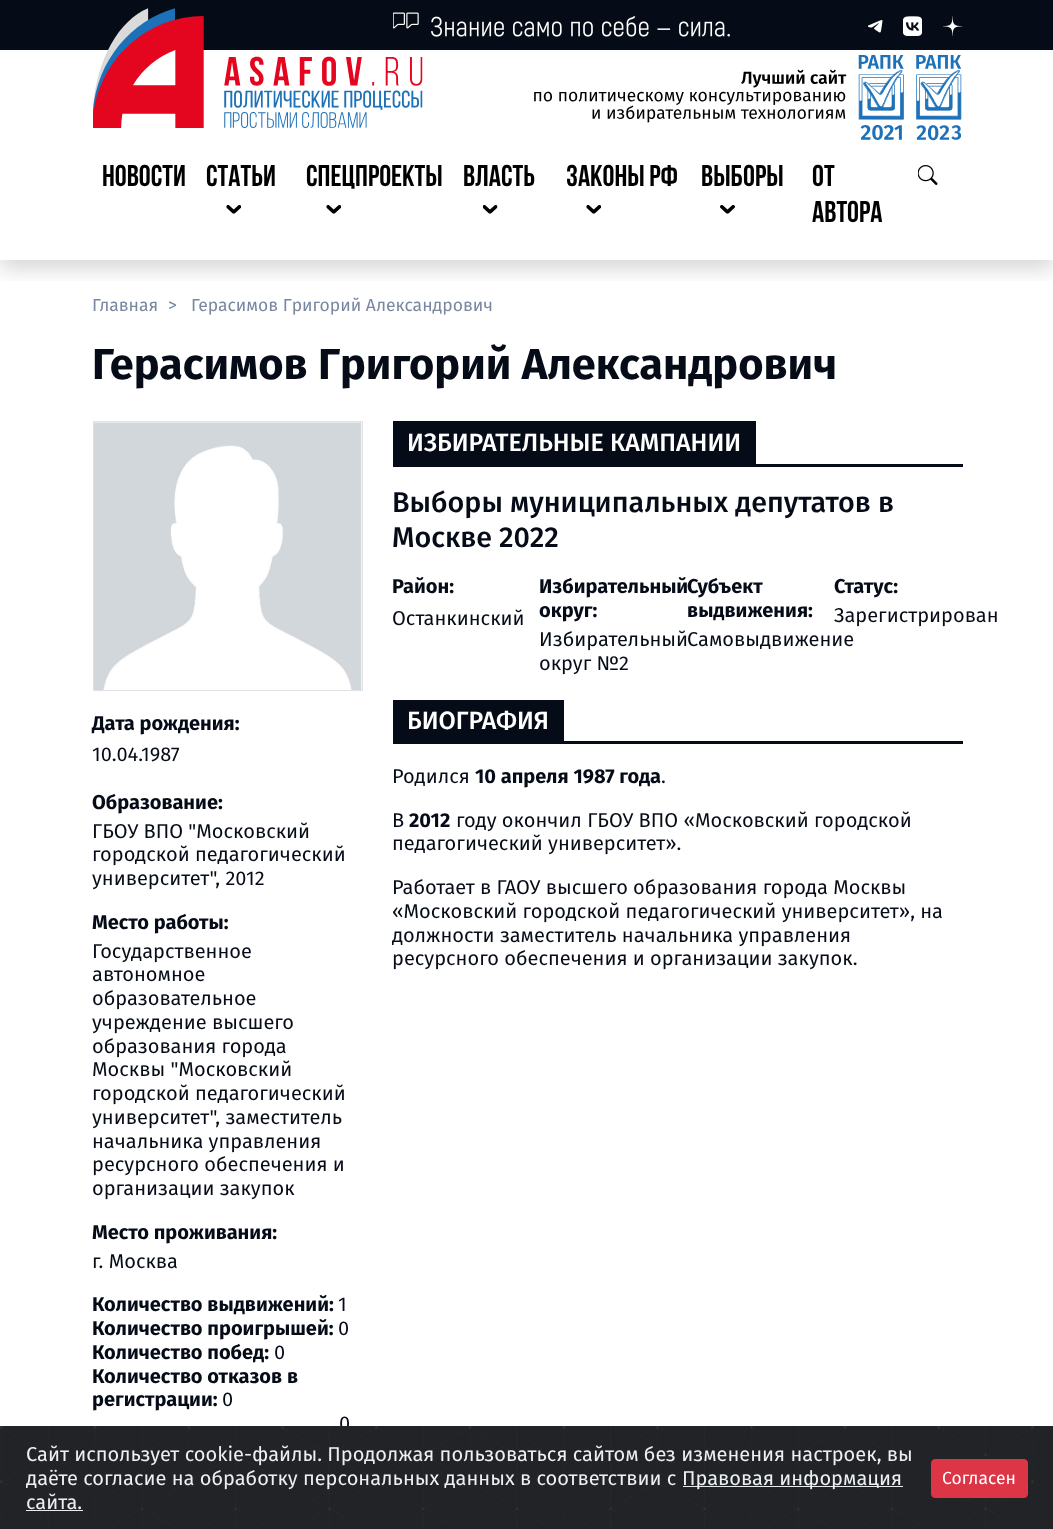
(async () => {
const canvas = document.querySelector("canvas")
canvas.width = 1053
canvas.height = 1529
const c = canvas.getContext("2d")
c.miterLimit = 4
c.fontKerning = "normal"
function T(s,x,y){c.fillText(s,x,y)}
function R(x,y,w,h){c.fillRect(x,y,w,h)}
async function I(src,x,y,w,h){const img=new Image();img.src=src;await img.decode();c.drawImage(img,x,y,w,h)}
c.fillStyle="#fff"
R(0,0,1053,1529)
c.save()
c.beginPath()
c.rect(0,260,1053,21)
c.clip()
c.fillStyle="#00000026"
c.filter="blur(10px)"
c.beginPath()
c.rect(0,10,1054,260)
c.fill()
c.filter="none"
c.restore()
c.fillStyle="#060c17"
R(0,0,1053,50)
await I("1.png",393,12,337,25)
await I("2.png",868,20,15,13)
await I("3.png",903,16,19,20)
await I("4.png",943,16,20,20)
await I("5.png",93,8,330,120)
await I("6.png",534,55,428,86)
c.font="bold 30px Bebas Neue"
c.fillStyle="#000"
T("НОВОСТИ",102,186)
T("СТАТЬИ",206,186)
await I("7.png",226,205,15,9)
T("СПЕЦПРОЕКТЫ",306,186)
await I("7.png",326,205,15,9)
T("ВЛАСТЬ",463,186)
await I("8.png",483,205,15,9)
T("ЗАКОНЫ РФ",566,186)
await I("7.png",586,205,15,9)
T("ВЫБОРЫ",701,186)
await I("9.png",720,205,15,9)
T("ОТ",812,186)
T("АВТОРА",812,222)
await I("10.png",918,165,20,20)
c.font="17.5px Fira Sans"
c.fillStyle="#7987a1"
T("Главная",92,311)
T(">",168,311)
T("Герасимов Григорий Александрович",191,311)
c.font="bold 43.3px Fira Sans"
c.fillStyle="#060c17"
T("Герасимов Григорий Александрович",92,379)
c.strokeStyle="#dee2e6"
c.strokeRect(93.5,421.5,269,269)
await I("11.png",94,422,268,268)
c.font="bold 20px Fira Sans"
T("Дата рождения:",92,730)
c.font="20px Fira Sans"
T("10.04.1987",92,761)
c.font="bold 20px Fira Sans"
T("Образование:",92,809)
c.font="20px Fira Sans"
T("ГБОУ ВПО \"Московский",92,838)
T("городской педагогический",92,861)
T("университет\", 2012",92,885)
c.font="bold 20px Fira Sans"
T("Место работы:",92,929)
c.font="20px Fira Sans"
T("Государственное",92,958)
T("автономное",92,981)
T("образовательное",92,1005)
T("учреждение высшего",92,1029)
T("образования города",92,1053)
T("Москвы \"Московский",92,1076)
T("городской педагогический",92,1100)
T("университет\", заместитель",92,1124)
T("начальника управления",92,1148)
T("ресурсного обеспечения и",92,1171)
T("организации закупок",92,1195)
c.font="bold 20px Fira Sans"
T("Место проживания:",92,1239)
c.font="20px Fira Sans"
T("г. Москва",92,1268)
c.font="bold 20px Fira Sans"
T("Количество выдвижений:",92,1311)
c.font="20px Fira Sans"
T("1",338,1311)
c.font="bold 20px Fira Sans"
T("Количество проигрышей:",92,1335)
c.font="20px Fira Sans"
T("0",338,1335)
c.font="bold 20px Fira Sans"
T("Количество побед:",92,1359)
c.font="20px Fira Sans"
T("0",274,1359)
c.font="bold 20px Fira Sans"
T("Количество отказов в",92,1383)
T("регистрации:",92,1406)
c.font="20px Fira Sans"
T("0",222,1406)
T("0",339,1430)
R(393,464,570,3)
R(393,421,363,43)
c.font="500 25px Fira Sans"
c.fillStyle="#fff"
T("ИЗБИРАТЕЛЬНЫЕ КАМПАНИИ",407,451)
c.font="500 28.7px Fira Sans"
c.fillStyle="#060c17"
T("Выборы муниципальных депутатов в",392,512)
T("Москве 2022",392,547)
c.font="bold 20px Fira Sans"
T("Район:",392,593)
c.font="20px Fira Sans"
T("Останкинский",392,625)
c.font="bold 20px Fira Sans"
T("Избирательный",539,593)
T("округ:",539,617)
c.font="20px Fira Sans"
T("Избирательный",539,646)
T("округ №2",539,670)
c.font="bold 20px Fira Sans"
T("Субъект",687,593)
T("выдвижения:",687,617)
c.font="20px Fira Sans"
T("Самовыдвижение",687,646)
c.font="bold 20px Fira Sans"
T("Статус:",834,593)
c.font="20px Fira Sans"
T("Зарегистрирован",834,622)
R(393,741,570,3)
R(393,700,171,41)
c.font="500 25px Fira Sans"
c.fillStyle="#fff"
T("БИОГРАФИЯ",407,729)
c.font="20px Fira Sans"
c.fillStyle="#060c17"
T("Родился",392,783)
c.font="bold 20px Fira Sans"
T("10 апреля 1987 года",475,783)
c.font="20px Fira Sans"
T(".",661,783)
T("В",392,827)
c.font="bold 20px Fira Sans"
T("2012",409,827)
c.font="20px Fira Sans"
T("году окончил ГБОУ ВПО «Московский городской",456,827)
T("педагогический университет».",392,850)
T("Работает в ГАОУ высшего образования города Москвы",392,894)
T("«Московский городской педагогический университет», на",392,918)
T("должности заместитель начальника управления",392,942)
T("ресурсного обеспечения и организации закупок.",392,965)
c.fillStyle="#212327"
R(1044,1426,9,103)
await I("12.png",0,1426,1044,103)
c.fillStyle="#ecf0f1"
T("Сайт использует cookie-файлы. Продолжая пользоваться сайтом без изменения настроек, вы",26,1461)
T("даёте согласие на обработку персональных данных в соответствии с",26,1485)
c.fillStyle="#e9ecef"
R(683,1486,220,1)
c.fillStyle="#ecf0f1"
T("Правовая информация",682,1485)
T("сайта.",26,1509)
c.fillStyle="#e9ecef"
R(26,1510,57,1)
c.fillStyle="#dc3545"
c.beginPath()
c.roundRect(931.5,1459.5,96,38,3.5)
c.fill()
c.strokeStyle="#dc3545"
c.stroke()
c.font="17.5px Fira Sans"
c.fillStyle="#fff"
T("Согласен",942,1484)
})()
